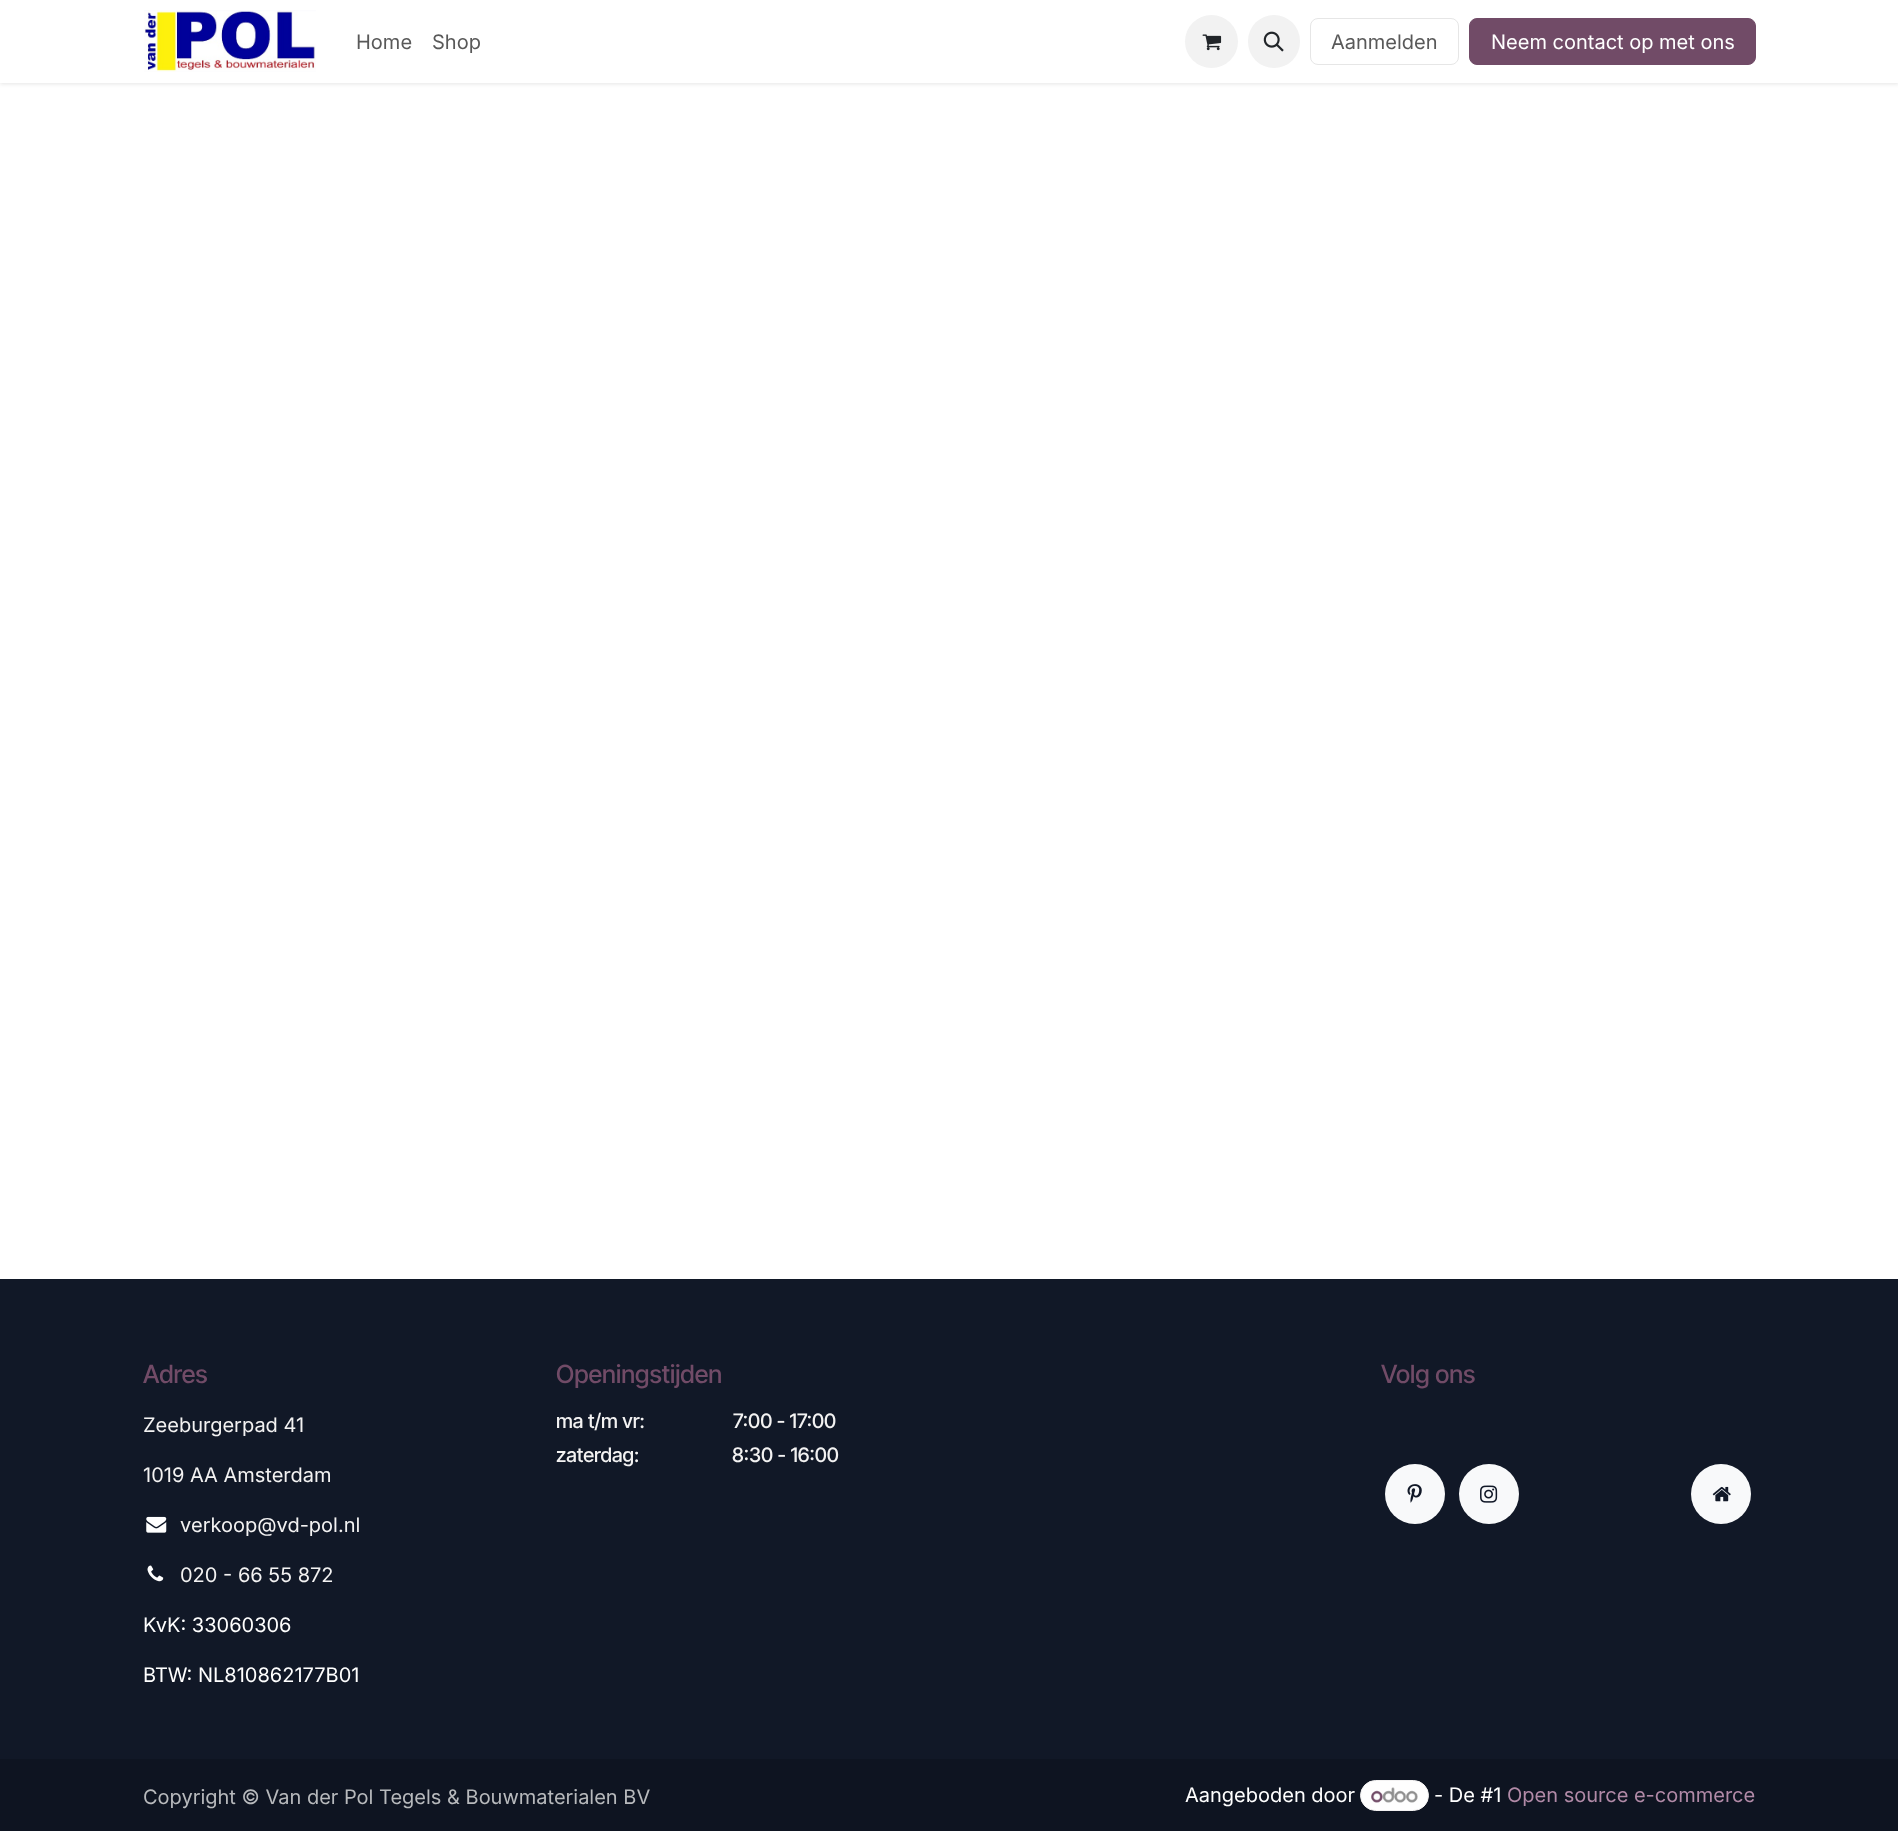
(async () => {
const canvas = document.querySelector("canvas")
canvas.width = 1898
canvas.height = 1831
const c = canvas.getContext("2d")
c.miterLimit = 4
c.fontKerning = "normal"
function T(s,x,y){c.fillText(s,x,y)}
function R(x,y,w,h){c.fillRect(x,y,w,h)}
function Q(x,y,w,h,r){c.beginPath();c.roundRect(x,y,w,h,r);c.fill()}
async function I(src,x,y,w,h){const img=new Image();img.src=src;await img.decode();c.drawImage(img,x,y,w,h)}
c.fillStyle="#fff"
R(0,0,1898,1831)
c.fillStyle="#0000001a"
c.filter="blur(2px)"
c.beginPath()
c.rect(0,1,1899,83)
c.fill()
c.filter="none"
c.fillStyle="#fff"
R(0,0,1898,83)
await I("1.png",144,10,172,62)
c.font="20px Inter"
c.fillStyle="#595959"
T("Home",356,49)
T("Shop",432,49)
c.fillStyle="#f2f2f2"
c.beginPath()
c.arc(1211.5,41.5,26.5,0,7)
c.fill()
await I("2.png",1202,34,20,17)
Q(1248,15,52,53,26)
await I("3.png",1263,31,21,21)
c.beginPath()
c.roundRect(1310.5,18.5,148,46,7.5)
c.strokeStyle="#e6e6e6"
c.stroke()
c.fillStyle="#595959"
T("Aanmelden",1331,49)
c.fillStyle="#714b67"
c.beginPath()
c.roundRect(1469.5,18.5,286,46,7.5)
c.fill()
c.strokeStyle="#714b67"
c.stroke()
c.fillStyle="#fff"
T("Neem contact op met ons",1491,49)
c.fillStyle="#111827"
R(0,1279,1898,480)
c.font="500 25px Inter Tight"
c.fillStyle="#714b67"
T("Adres",143,1383)
c.font="20px Inter"
c.fillStyle="#f3f2f2"
T("Zeeburgerpad 41",143,1432)
T("1019 AA Amsterdam",143,1482)
await I("4.png",146,1516,21,17)
T("v",180,1532)
T("erkoop@vd-pol.nl",191,1532)
await I("5.png",147,1565,17,17)
T("020 - 66 55 872",180,1582)
c.fillStyle="#fff"
T("KvK: 33060306",143,1632)
T("BTW: NL810862177B01",143,1682)
c.font="500 25px Inter Tight"
c.fillStyle="#714b67"
T("Openingstijden",556,1383)
c.font="500 20px Inter Tight"
c.fillStyle="#f3f2f2"
T("ma t/m vr:",556,1428)
T("7:00 - 17:00",733,1428)
T("zaterdag:",556,1462)
T("8:30 - 16:00",732,1462)
c.font="500 25px Inter Tight"
c.fillStyle="#714b67"
T("Volg ons",1381,1383)
c.fillStyle="#f8f9fa"
c.beginPath()
c.arc(1415,1494,30,0,7)
c.fill()
await I("6.png",1407,1484,15,19)
c.beginPath()
c.arc(1489,1494,30,0,7)
c.fill()
await I("7.png",1480,1485,18,18)
c.beginPath()
c.arc(1721,1494,30,0,7)
c.fill()
await I("8.png",1712,1486,19,16)
c.fillStyle="#0e1421"
R(0,1759,1898,72)
c.font="20px Inter"
c.fillStyle="#b7b9bc"
T("Copyright © Van der Pol Tegels & Bouwmaterialen BV",143,1804)
c.fillStyle="#fff"
T("Aangeboden door",1185,1802)
c.fillStyle="#fefefe"
c.beginPath()
c.roundRect(1360.5,1780.5,68,30,15)
c.fill()
c.strokeStyle="#f3f2f2"
c.stroke()
await I("9.png",1371,1787,47,16)
c.fillStyle="#fff"
T("- De #1",1434,1802)
c.fillStyle="#b18aa7"
T("Open source e-commerce",1507,1802)
})()
